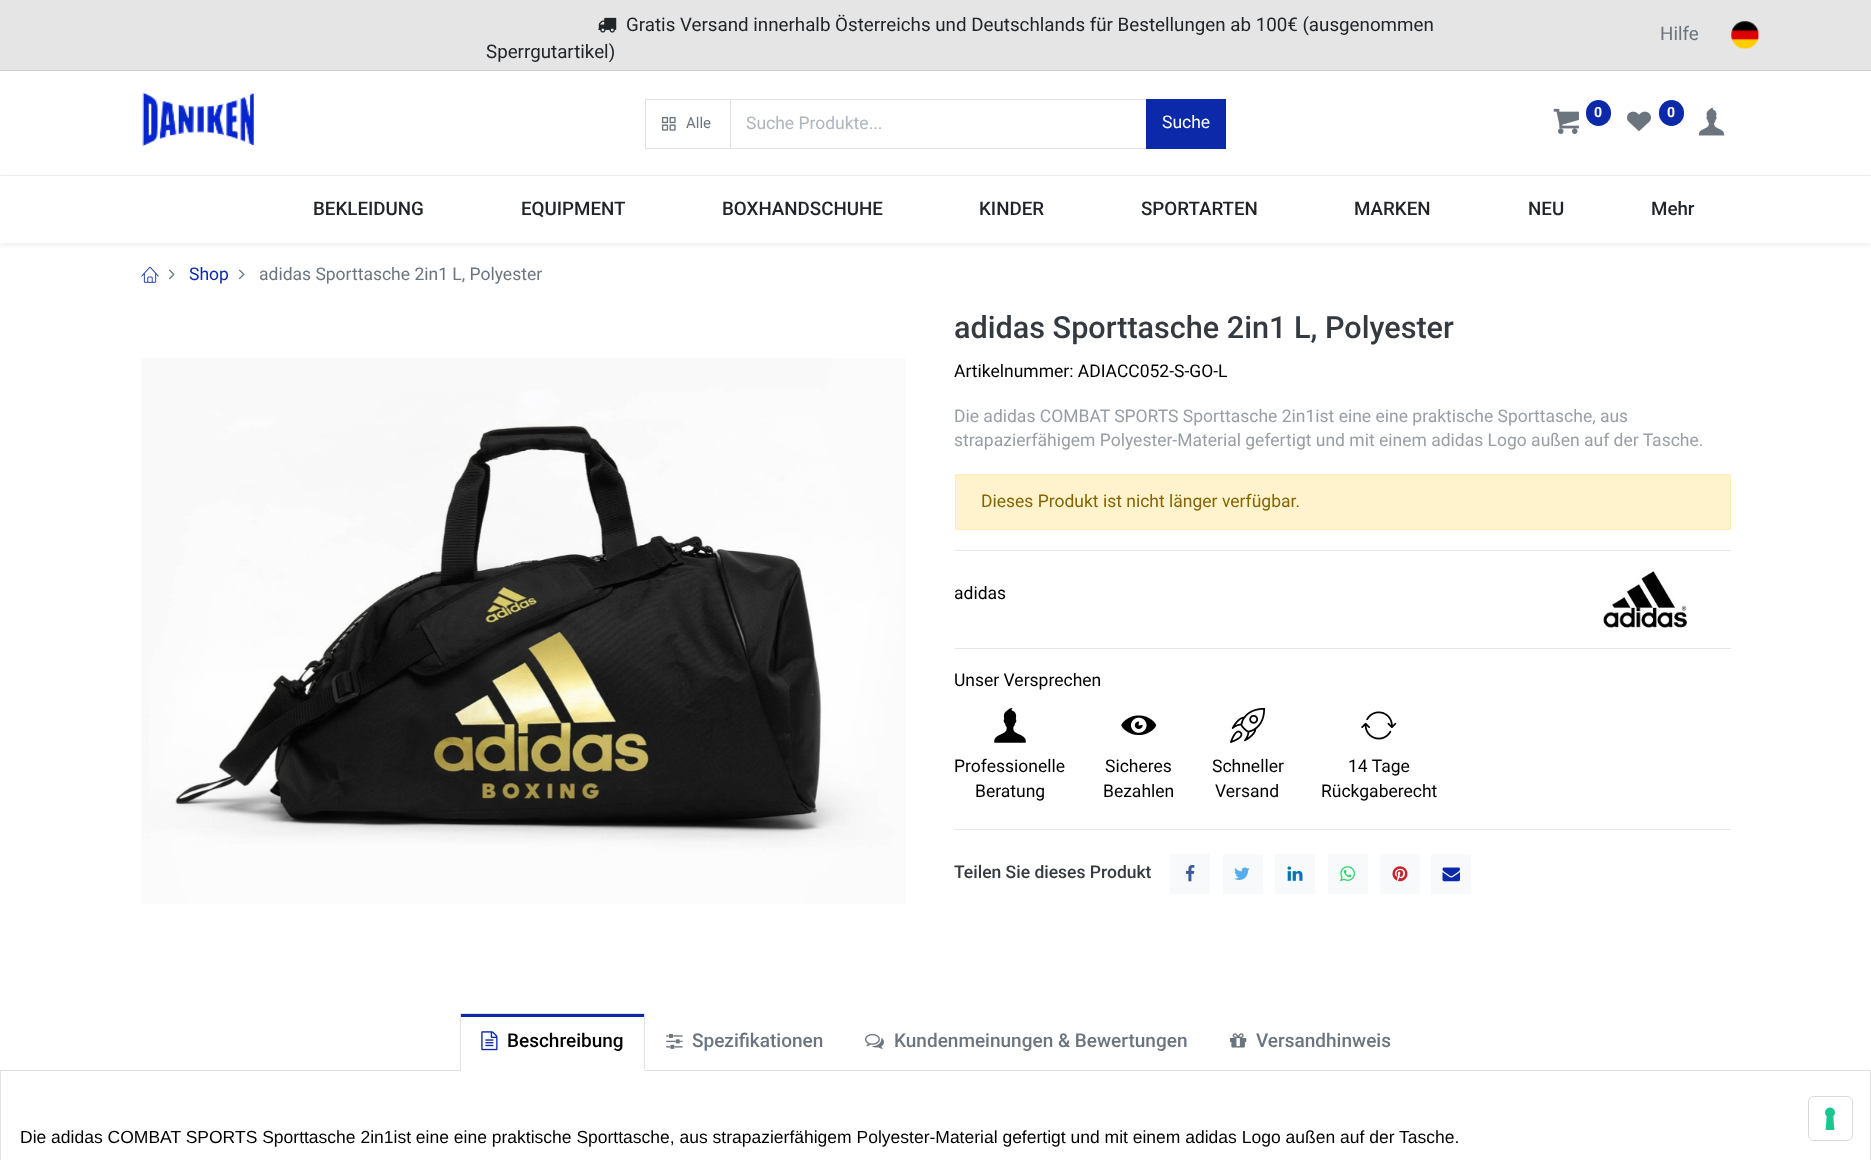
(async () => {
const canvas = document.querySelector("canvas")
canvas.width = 1871
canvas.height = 1160
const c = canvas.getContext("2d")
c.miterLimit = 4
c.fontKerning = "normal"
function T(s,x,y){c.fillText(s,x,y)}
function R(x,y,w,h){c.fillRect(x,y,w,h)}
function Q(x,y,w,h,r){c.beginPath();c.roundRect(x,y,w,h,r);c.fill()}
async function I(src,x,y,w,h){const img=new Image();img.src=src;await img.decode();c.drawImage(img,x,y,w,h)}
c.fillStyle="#fff"
R(0,0,1871,1160)
c.fillStyle="#e5e5e5"
R(0,0,1871,70)
c.fillStyle="#cdcece"
R(0,70,1871,1)
await I("1.png",598,17,19,16)
c.font="18.75px Roboto"
c.fillStyle="#212529"
T("Gratis Versand innerhalb Österreichs und Deutschlands für Bestellungen ab 100€ (ausgenommen",626,31)
T("Sperrgutartikel)",486,58)
c.fillStyle="#6c757d"
T("Hilfe",1660,40)
await I("2.png",1731,21,29,29)
c.fillStyle="#edeeef"
R(0,175,1871,1)
await I("3.png",142,92,112,55)
await I("4.png",1553,108,26,26)
c.fillStyle="#0c29aa"
Q(1586,100,25,26,12.5)
c.font="bold 14px Roboto"
c.fillStyle="#fff"
T("0",1594,117)
await I("5.png",1627,111,24,21)
c.fillStyle="#0c29aa"
Q(1659,100,25,26,12.5)
c.fillStyle="#fff"
T("0",1667,117)
await I("6.png",1698,107,27,29)
c.strokeStyle="#dee2e6"
c.strokeRect(730.5,99.5,417,49)
c.strokeRect(645.5,99.5,85,49)
await I("7.png",661,116,15,15)
c.font="15px Roboto"
c.fillStyle="#6c757d"
T("Alle",686,128)
c.font="17.5px Roboto"
c.fillStyle="#adb5bd"
T("Suche Produkte...",746,129)
c.fillStyle="#0c29aa"
R(1146,99,80,50)
c.fillStyle="#fff"
T("Suche",1162,128)
c.fillStyle="#00000012"
c.filter="blur(2.5px)"
c.beginPath()
c.rect(0,179,1871,66)
c.fill()
c.filter="none"
c.fillStyle="#fff"
R(0,176,1871,67)
c.font="500 18.75px Roboto"
c.fillStyle="#212529"
T("BEKLEIDUNG",313,215)
T("EQUIPMENT",521,215)
T("BOXHANDSCHUHE",722,215)
T("KINDER",979,215)
T("SPORTARTEN",1141,215)
T("MARKEN",1354,215)
T("NEU",1528,215)
T("Mehr",1651,215)
await I("8.png",141,267,18,16)
await I("9.png",168,269,7,11)
c.font="17.5px Roboto"
c.fillStyle="#0c29aa"
T("Shop",189,280)
await I("9.png",238,269,7,11)
c.fillStyle="#6c757d"
T("adidas Sporttasche 2in1 L, Polyester",259,280)
await I("10.png",141,358,765,546)
c.font="500 30.6px Roboto"
c.fillStyle="#343a40"
T("adidas Sporttasche 2in1 L, Polyester",954,338)
c.font="17.5px Roboto"
c.fillStyle="#000"
T("Artikelnummer: ADIACC052-S-GO-L",954,377)
c.fillStyle="#989ea4"
T("Die adidas COMBAT SPORTS Sporttasche 2in1ist eine eine praktische Sporttasche, aus",954,422)
T("strapazierfähigem Polyester-Material gefertigt und mit einem adidas Logo außen auf der Tasche.",954,446)
c.fillStyle="#fff3cd"
c.beginPath()
c.rect(955.5,474.5,775,55)
c.fill()
c.strokeStyle="#ffeeba"
c.stroke()
c.fillStyle="#856404"
T("Dieses Produkt ist nicht länger verfügbar.",981,507)
c.fillStyle="#e6e6e6"
R(955,550,776,1)
c.fillStyle="#000"
T("adidas",954,599)
await I("11.png",1601,571,87,57)
c.fillStyle="#e6e6e6"
R(955,648,776,1)
c.fillStyle="#000"
T("Unser Versprechen",954,686)
await I("12.png",994,708,32,35)
T("Professionelle",954,772)
T("Beratung",975,797)
await I("13.png",1121,715,36,20)
T("Sicheres",1105,772)
T("Bezahlen",1103,797)
await I("14.png",1230,707,36,36)
T("Schneller",1212,772)
T("Versand",1215,797)
await I("15.png",1361,711,36,29)
T("14 Tage",1348,772)
T("Rückgaberecht",1321,797)
c.fillStyle="#e6e6e6"
R(955,829,776,1)
c.font="500 17.5px Roboto"
c.fillStyle="#343a40"
T("Teilen Sie dieses Produkt",954,878)
c.fillStyle="#f8f9fa"
R(1170,854,40,40)
await I("16.png",1185,865,10,17)
R(1223,854,40,40)
await I("17.png",1234,867,16,13)
R(1275,854,40,40)
await I("18.png",1287,866,16,15)
R(1328,854,40,40)
await I("19.png",1340,866,15,16)
R(1380,854,40,40)
await I("20.png",1392,866,16,16)
R(1431,854,40,40)
await I("21.png",1442,867,18,15)
c.fillStyle="#dee2e6"
R(0,1070,1871,1)
c.fillStyle="#0c29aa"
R(461,1014,183,3)
c.fillStyle="#dee2e6"
R(460,1013,185,1)
R(644,1013,1,58)
c.fillStyle="#fff"
R(460,1070,185,1)
c.fillStyle="#dee2e6"
R(460,1013,1,58)
await I("22.png",481,1031,17,20)
c.font="500 19px Roboto"
c.fillStyle="#000"
T("Beschreibung",507,1047)
await I("23.png",666,1033,17,16)
c.fillStyle="#6c757d"
T("Spezifikationen",692,1047)
await I("24.png",865,1033,19,16)
T("Kundenmeinungen & Bewertungen",894,1047)
await I("25.png",1230,1033,17,15)
T("Versandhinweis",1256,1047)
c.fillStyle="#dee2e6"
R(1870,1071,1,89)
R(0,1071,1,89)
c.font="17.5px Liberation Sans"
c.fillStyle="#000"
T("Die adidas COMBAT SPORTS Sporttasche 2in1ist eine eine praktische Sporttasche, aus strapazierfähigem Polyester-Material gefertigt und mit einem adidas Logo außen auf der Tasche.",20,1143)
c.beginPath()
c.roundRect(1808.5,1096.5,44,44,5.5)
c.strokeStyle="#d9d9d9"
c.stroke()
c.fillStyle="#fff"
Q(1809,1098,42,42,5)
await I("26.png",1825,1107,10,23)
})()
